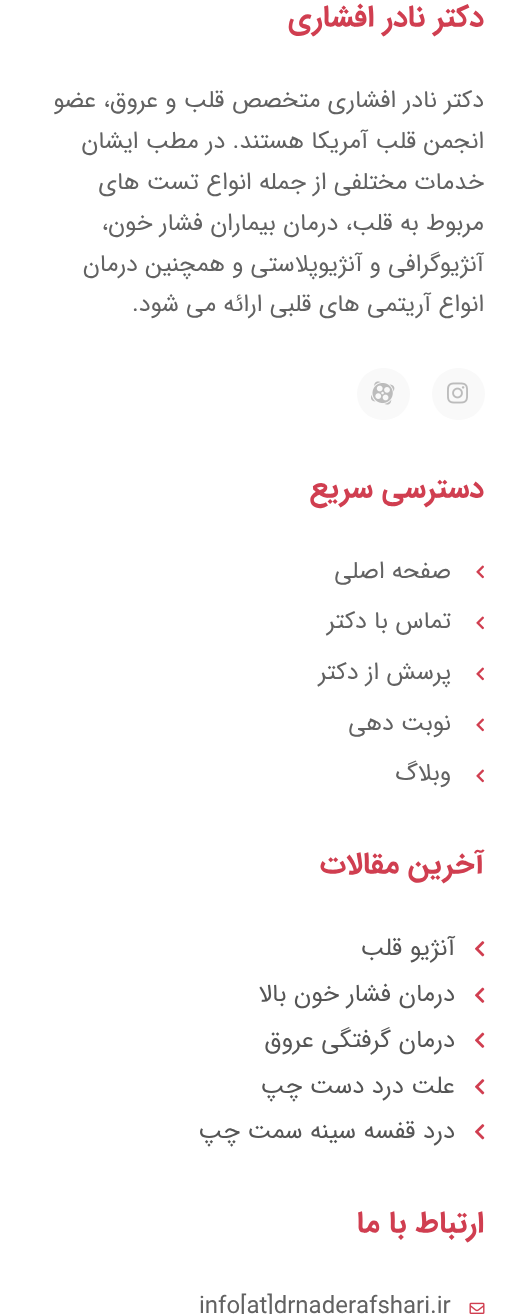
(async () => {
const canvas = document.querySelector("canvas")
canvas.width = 522
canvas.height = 1314
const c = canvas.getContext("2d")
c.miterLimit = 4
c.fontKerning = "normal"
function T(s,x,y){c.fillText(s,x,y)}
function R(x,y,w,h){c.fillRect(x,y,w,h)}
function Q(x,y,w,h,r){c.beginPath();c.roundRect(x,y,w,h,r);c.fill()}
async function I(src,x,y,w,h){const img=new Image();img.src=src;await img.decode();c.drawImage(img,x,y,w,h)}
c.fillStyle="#fff"
R(0,0,522,1314)
c.direction="rtl"
c.font="bold 30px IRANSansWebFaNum"
c.fillStyle="#d03e50"
T("دکتر نادر افشاری",484,26)
c.font="24px IRANSansWebFaNum"
c.fillStyle="#626262"
T("دکتر نادر افشاری متخصص قلب و عروق، عضو",484,107)
T("انجمن قلب آمریکا هستند. در مطب ایشان",484,148)
T("خدمات مختلفی از جمله انواع تست های",484,189)
T("مربوط به قلب، درمان بیماران فشار خون،",484,230)
T("آنژیوگرافی و آنژیوپلاستی و همچنین درمان",484,271)
T("انواع آریتمی های قلبی ارائه می شود.",484,311)
c.fillStyle="#f9f9f9"
Q(432,368,53,52,26)
await I("1.png",447,382,21,22)
Q(357,368,53,52,26)
await I("2.png",371,381,24,24)
c.font="bold 30px IRANSansWebFaNum"
c.fillStyle="#d03e50"
T("دسترسی سریع",484,497)
await I("3.png",476,565,8,14)
c.font="24px IRANSansWebFaNum"
c.fillStyle="#626262"
T("صفحه اصلی",451,578)
await I("3.png",476,616,8,14)
T("تماس با دکتر",451,628)
await I("3.png",476,667,8,14)
T("پرسش از دکتر",451,679)
await I("3.png",476,718,8,14)
T("نوبت دهی",451,730)
await I("3.png",476,769,8,14)
T("وبلاگ",451,780)
c.font="bold 30px IRANSansWebFaNum"
c.fillStyle="#d03e50"
T("آخرین مقالات",484,873)
await I("4.png",475,941,10,16)
c.font="24.6px IRANSansWebFaNum"
c.fillStyle="#555"
T("آنژیو قلب",455,955)
await I("5.png",475,987,10,16)
T("درمان فشار خون بالا",455,1001)
await I("5.png",475,1032,10,16)
T("درمان گرفتگی عروق",455,1047)
await I("4.png",475,1079,10,16)
T("علت درد دست چپ",455,1093)
await I("4.png",475,1124,10,16)
T("درد قفسه سينه سمت چپ",455,1138)
c.font="bold 30px IRANSansWebFaNum"
c.fillStyle="#d03e50"
T("ارتباط با ما",484,1232)
await I("6.png",469,1302,16,12)
c.direction="ltr"
c.font="24px IRANSansWebFaNum"
c.fillStyle="#626262"
T("info[at]drnaderafshari.ir",199,1313)
})()
